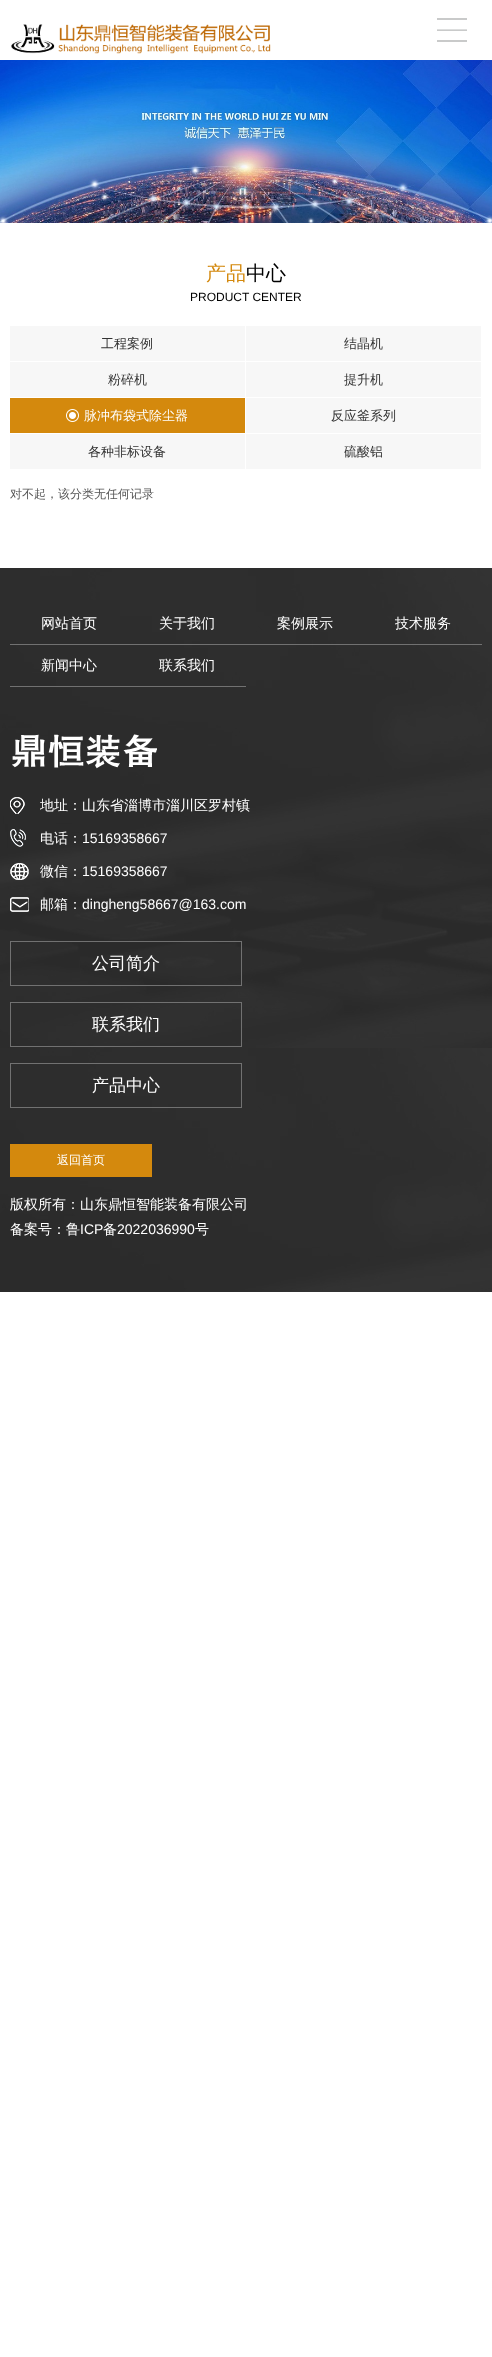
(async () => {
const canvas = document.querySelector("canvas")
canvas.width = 492
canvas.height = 2357
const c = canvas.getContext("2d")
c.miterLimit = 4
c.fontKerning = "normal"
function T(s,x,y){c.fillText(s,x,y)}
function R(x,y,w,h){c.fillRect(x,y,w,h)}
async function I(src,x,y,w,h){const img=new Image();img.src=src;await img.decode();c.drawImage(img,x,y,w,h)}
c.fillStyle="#fff"
R(0,0,492,2357)
await I("1.png",11,24,260,30)
await I("2.png",437,18,30,24)
await I("3.png",0,60,492,163)
c.font="500 20px WenQuanYi Zen Hei"
c.fillStyle="#d4890d"
T("产品",206,280)
c.fillStyle="#000"
T("中心",246,280)
c.font="12px Liberation Sans"
T("PRODUCT CENTER",190,301)
c.fillStyle="#f7f7f7"
R(10,326,471,143)
c.fillStyle="#fff"
R(245,326,1,144)
R(10,361,472,1)
c.font="500 13px WenQuanYi Zen Hei"
c.fillStyle="#333"
T("工程案例",101,348)
T("结晶机",344,348)
c.fillStyle="#fff"
R(10,397,472,1)
c.fillStyle="#333"
T("粉碎机",108,384)
T("提升机",344,384)
c.fillStyle="#d4890d"
R(10,398,235,35)
c.fillStyle="#fff"
R(10,433,472,1)
await I("4.png",66,409,13,13)
T("脉冲布袋式除尘器",84,420)
c.fillStyle="#333"
T("反应釜系列",331,420)
T("各种非标设备",88,456)
T("硫酸铝",344,456)
c.font="500 12px WenQuanYi Zen Hei"
c.fillStyle="#555"
T("对不起，该分类无任何记录",10,498)
await I("5.png",0,568,492,724)
c.fillStyle="#717171"
R(10,644,472,1)
c.font="500 14px WenQuanYi Zen Hei"
c.fillStyle="#fff"
T("网站首页",41,628)
T("关于我们",159,628)
T("案例展示",277,628)
T("技术服务",395,628)
c.fillStyle="#717171"
R(10,686,236,1)
c.fillStyle="#fff"
T("新闻中心",41,670)
T("联系我们",159,670)
await I("6.png",12,734,145,35)
await I("7.png",10,797,15,17)
T("地址：山东省淄博市淄川区罗村镇",40,810)
await I("8.png",10,829,16,18)
T("电话：",40,843)
c.font="14px Liberation Sans"
T("15169358667",82,843)
await I("9.png",10,863,19,17)
c.font="500 14px WenQuanYi Zen Hei"
T("微信：",40,876)
c.font="14px Liberation Sans"
T("15169358667",82,876)
await I("10.png",10,897,19,15)
c.font="500 14px WenQuanYi Zen Hei"
T("邮箱：",40,909)
c.font="14px Liberation Sans"
T("dingheng58667@163.com",82,909)
c.strokeStyle="#717171"
c.strokeRect(10.5,941.5,231,44)
c.font="500 17px WenQuanYi Zen Hei"
T("公司简介",92,969)
c.strokeRect(10.5,1002.5,231,44)
T("联系我们",92,1030)
c.strokeRect(10.5,1063.5,231,44)
T("产品中心",92,1091)
c.fillStyle="#d4890d"
R(10,1144,142,33)
c.font="500 12px WenQuanYi Zen Hei"
c.fillStyle="#fff"
T("返回首页",57,1164)
c.font="500 14px WenQuanYi Zen Hei"
T("版权所有：山东鼎恒智能装备有限公司",10,1209)
T("备案号：鲁",10,1234)
c.font="14px Liberation Sans"
T("ICP",80,1234)
c.font="500 14px WenQuanYi Zen Hei"
T("备",103,1234)
c.font="14px Liberation Sans"
T("2022036990",117,1234)
c.font="500 14px WenQuanYi Zen Hei"
T("号",195,1234)
})()
